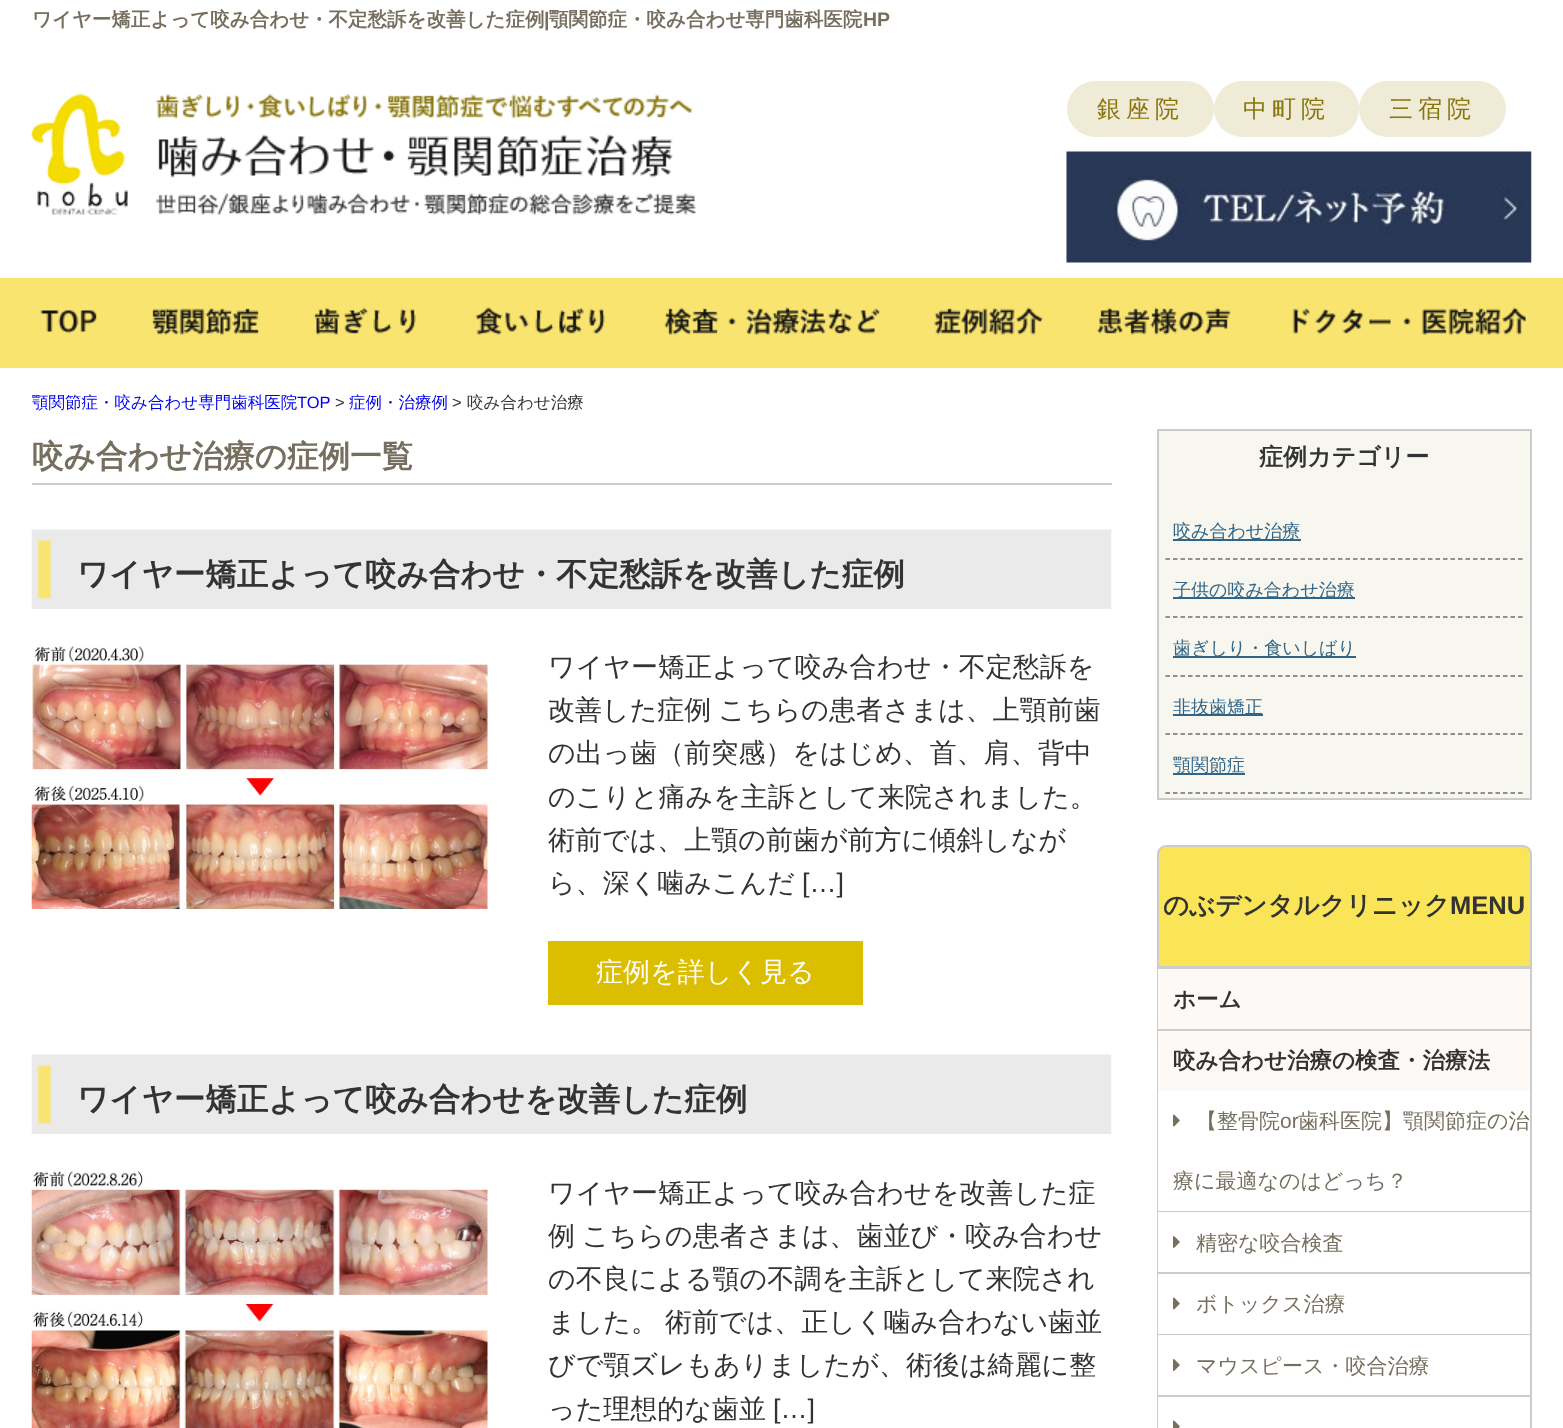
(async () => {
const canvas = document.querySelector("canvas")
canvas.width = 1563
canvas.height = 1428
const c = canvas.getContext("2d")
c.miterLimit = 4
c.fontKerning = "normal"
function T(s,x,y){c.fillText(s,x,y)}
function R(x,y,w,h){c.fillRect(x,y,w,h)}
function Q(x,y,w,h,r){c.beginPath();c.roundRect(x,y,w,h,r);c.fill()}
async function I(src,x,y,w,h){const img=new Image();img.src=src;await img.decode();c.drawImage(img,x,y,w,h)}
let path
c.fillStyle="#fff"
R(0,0,1563,1428)
c.font="bold 19.5px WenQuanYi Zen Hei"
c.fillStyle="#766f60"
T("ワイヤー矯正よって咬み合わせ・不定愁訴を改善した症例",32,26)
c.font="bold 19.5px Liberation Sans"
T("|",544,26)
c.font="bold 19.5px WenQuanYi Zen Hei"
T("顎関節症・咬み合わせ専門歯科医院",549,26)
c.font="bold 19.5px Liberation Sans"
T("HP",863,26)
await I("1.png",31,94,665,121)
c.fillStyle="#efebd7"
Q(1067,81,147,56,28)
c.letterSpacing="5px"
c.font="500 24px WenQuanYi Zen Hei"
c.fillStyle="#88750b"
T("銀座院",1097,117)
c.fillStyle="#efebd7"
Q(1214,81,145,56,28)
c.fillStyle="#88750b"
T("中町院",1243,117)
c.fillStyle="#efebd7"
Q(1359,81,147,56,28)
c.fillStyle="#88750b"
T("三宿院",1389,117)
await I("2.png",1066,151,466,112)
c.fillStyle="#f9e46f"
R(0,278,1563,90)
await I("3.png",40,310,57,24)
await I("4.png",152,308,107,27)
await I("5.png",314,307,102,28)
await I("6.png",475,307,130,28)
await I("7.png",664,307,216,28)
await I("8.png",934,307,109,28)
await I("9.png",1097,307,134,28)
await I("10.png",1292,307,234,28)
c.save()
c.beginPath()
c.rect(32,368,1500,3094)
c.clip()
c.letterSpacing="0px"
c.font="500 16.5px WenQuanYi Zen Hei"
c.fillStyle="#00e"
T("顎関節症・咬み合わせ専門歯科医院",32,408)
c.restore()
c.letterSpacing="0px"
c.font="16.5px Liberation Sans"
c.fillStyle="#00e"
T("TOP",297,408)
c.fillStyle="#333"
T(">",335,408)
c.font="500 16.5px WenQuanYi Zen Hei"
c.fillStyle="#00e"
T("症例・治療例",349,408)
c.font="16.5px Liberation Sans"
c.fillStyle="#333"
T(">",452,408)
c.font="500 16.5px WenQuanYi Zen Hei"
T("咬み合わせ治療",467,408)
c.fillStyle="#ccc"
R(32,483,1080,2)
c.font="bold 31.5px WenQuanYi Zen Hei"
c.fillStyle="#766f60"
T("咬み合わせ治療の症例一覧",32,467)
await I("11.png",31,529,1081,80)
c.fillStyle="#333"
T("ワイヤー矯正よって咬み合わせ・不定愁訴を改善した症例",77,585)
await I("12.png",31,646,457,263)
c.font="500 27px WenQuanYi Zen Hei"
T("ワイヤー矯正よって咬み合わせ・不定愁訴を",548,676)
c.wordSpacing="-1px"
T("改善した症例 こちらの患者さまは、上顎前歯",548,719)
c.wordSpacing="0px"
T("の出っ歯（前突感）をはじめ、首、肩、背中",548,762)
T("のこりと痛みを主訴として来院されました。",548,806)
T("術前では、上顎の前歯が前方に傾斜しなが",548,849)
T("ら、深く噛みこんだ",548,892)
c.font="27px Liberation Sans"
T("[…]",802,892)
c.fillStyle="#dbbe00"
R(548,941,315,64)
c.font="500 27px WenQuanYi Zen Hei"
c.fillStyle="#fff"
T("症例を詳しく見る",596,981)
await I("11.png",31,1054,1081,80)
c.font="bold 31.5px WenQuanYi Zen Hei"
c.fillStyle="#333"
T("ワイヤー矯正よって咬み合わせを改善した症例",77,1110)
await I("13.png",31,1171,457,257)
c.font="500 27px WenQuanYi Zen Hei"
T("ワイヤー矯正よって咬み合わせを改善した症",548,1202)
c.wordSpacing="-1px"
T("例 こちらの患者さまは、歯並び・咬み合わせ",548,1245)
c.wordSpacing="0px"
T("の不良による顎の不調を主訴として来院され",548,1288)
c.wordSpacing="-1px"
T("ました。 術前では、正しく噛み合わない歯並",548,1331)
c.wordSpacing="0px"
T("びで顎ズレもありましたが、術後は綺麗に整",548,1374)
T("った理想的な歯並",548,1418)
c.font="27px Liberation Sans"
T("[…]",773,1418)
c.fillStyle="#f7f6ef"
c.beginPath()
c.rect(1158,430,373,369)
c.fill()
c.strokeStyle="#ccc"
c.lineWidth=2
c.stroke()
c.font="bold 24px WenQuanYi Zen Hei"
c.fillStyle="#333"
T("症例カテゴリー",1259,465)
path = new Path2D("M1165.5 559h357")
c.strokeStyle="#6f6f6f"
c.lineWidth=1.5
c.setLineDash([4.5,3])
c.stroke(path)
c.fillStyle="#316587"
R(1173,539,128,2)
c.font="500 18px WenQuanYi Zen Hei"
T("咬み合わせ治療",1173,537)
path = new Path2D("M1165.5 617h357")
c.stroke(path)
R(1173,597,182,2)
T("子供の咬み合わせ治療",1173,596)
path = new Path2D("M1165.5 676h357")
c.stroke(path)
R(1173,656,183,2)
T("歯ぎしり・食いしばり",1173,654)
path = new Path2D("M1165.5 734h357")
c.stroke(path)
R(1173,714,90,2)
T("非抜歯矯正",1173,713)
path = new Path2D("M1165.5 793h357")
c.stroke(path)
R(1173,773,72,2)
T("顎関節症",1173,771)
c.fillStyle="#fae558"
c.beginPath()
c.roundRect(1158,846,373,121,[8,8,0,0])
c.fill()
c.strokeStyle="#ccc"
c.lineWidth=2
c.setLineDash([])
c.stroke()
c.font="bold 25.5px WenQuanYi Zen Hei"
c.fillStyle="#333"
T("のぶデンタルクリニック",1163,914)
c.font="bold 25.5px Liberation Sans"
T("MENU",1450,914)
c.strokeRect(1158,969,373,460)
c.fillStyle="#fcf9f6"
R(1158,969,372,60)
c.fillStyle="#ccc"
R(1158,1029,372,2)
c.font="bold 22.5px WenQuanYi Zen Hei"
c.fillStyle="#333"
T("ホーム",1173,1007)
c.fillStyle="#fcf9f6"
R(1158,1031,372,60)
c.fillStyle="#333"
T("咬み合わせ治療の検査・治療法",1173,1068)
c.fillStyle="#fff"
R(1158,1091,1,120)
c.fillStyle="#ccc"
R(1158,1211,372,1)
await I("14.png",1173,1114,7,13)
c.font="500 21px WenQuanYi Zen Hei"
c.fillStyle="#766f60"
T("【整骨院",1196,1128)
c.font="21px Liberation Sans"
T("or",1280,1128)
c.font="500 21px WenQuanYi Zen Hei"
T("歯科医院】顎関節症の治",1298,1128)
T("療に最適なのはどっち？",1173,1188)
c.fillStyle="#fff"
R(1158,1212,1,60)
c.fillStyle="#ccc"
R(1158,1272,372,2)
await I("15.png",1173,1236,7,12)
c.fillStyle="#766f60"
T("精密な咬合検査",1196,1250)
c.fillStyle="#fff"
R(1158,1274,1,60)
c.fillStyle="#ccc"
R(1158,1334,372,1)
await I("14.png",1173,1297,7,13)
c.fillStyle="#766f60"
T("ボトックス治療",1196,1311)
c.fillStyle="#fff"
R(1158,1335,1,60)
c.fillStyle="#ccc"
R(1158,1395,372,2)
await I("15.png",1173,1359,7,12)
c.fillStyle="#766f60"
T("マウスピース・咬合治療",1196,1373)
c.fillStyle="#fff"
R(1158,1397,1,31)
await I("16.png",1173,1420,7,8)
})()
